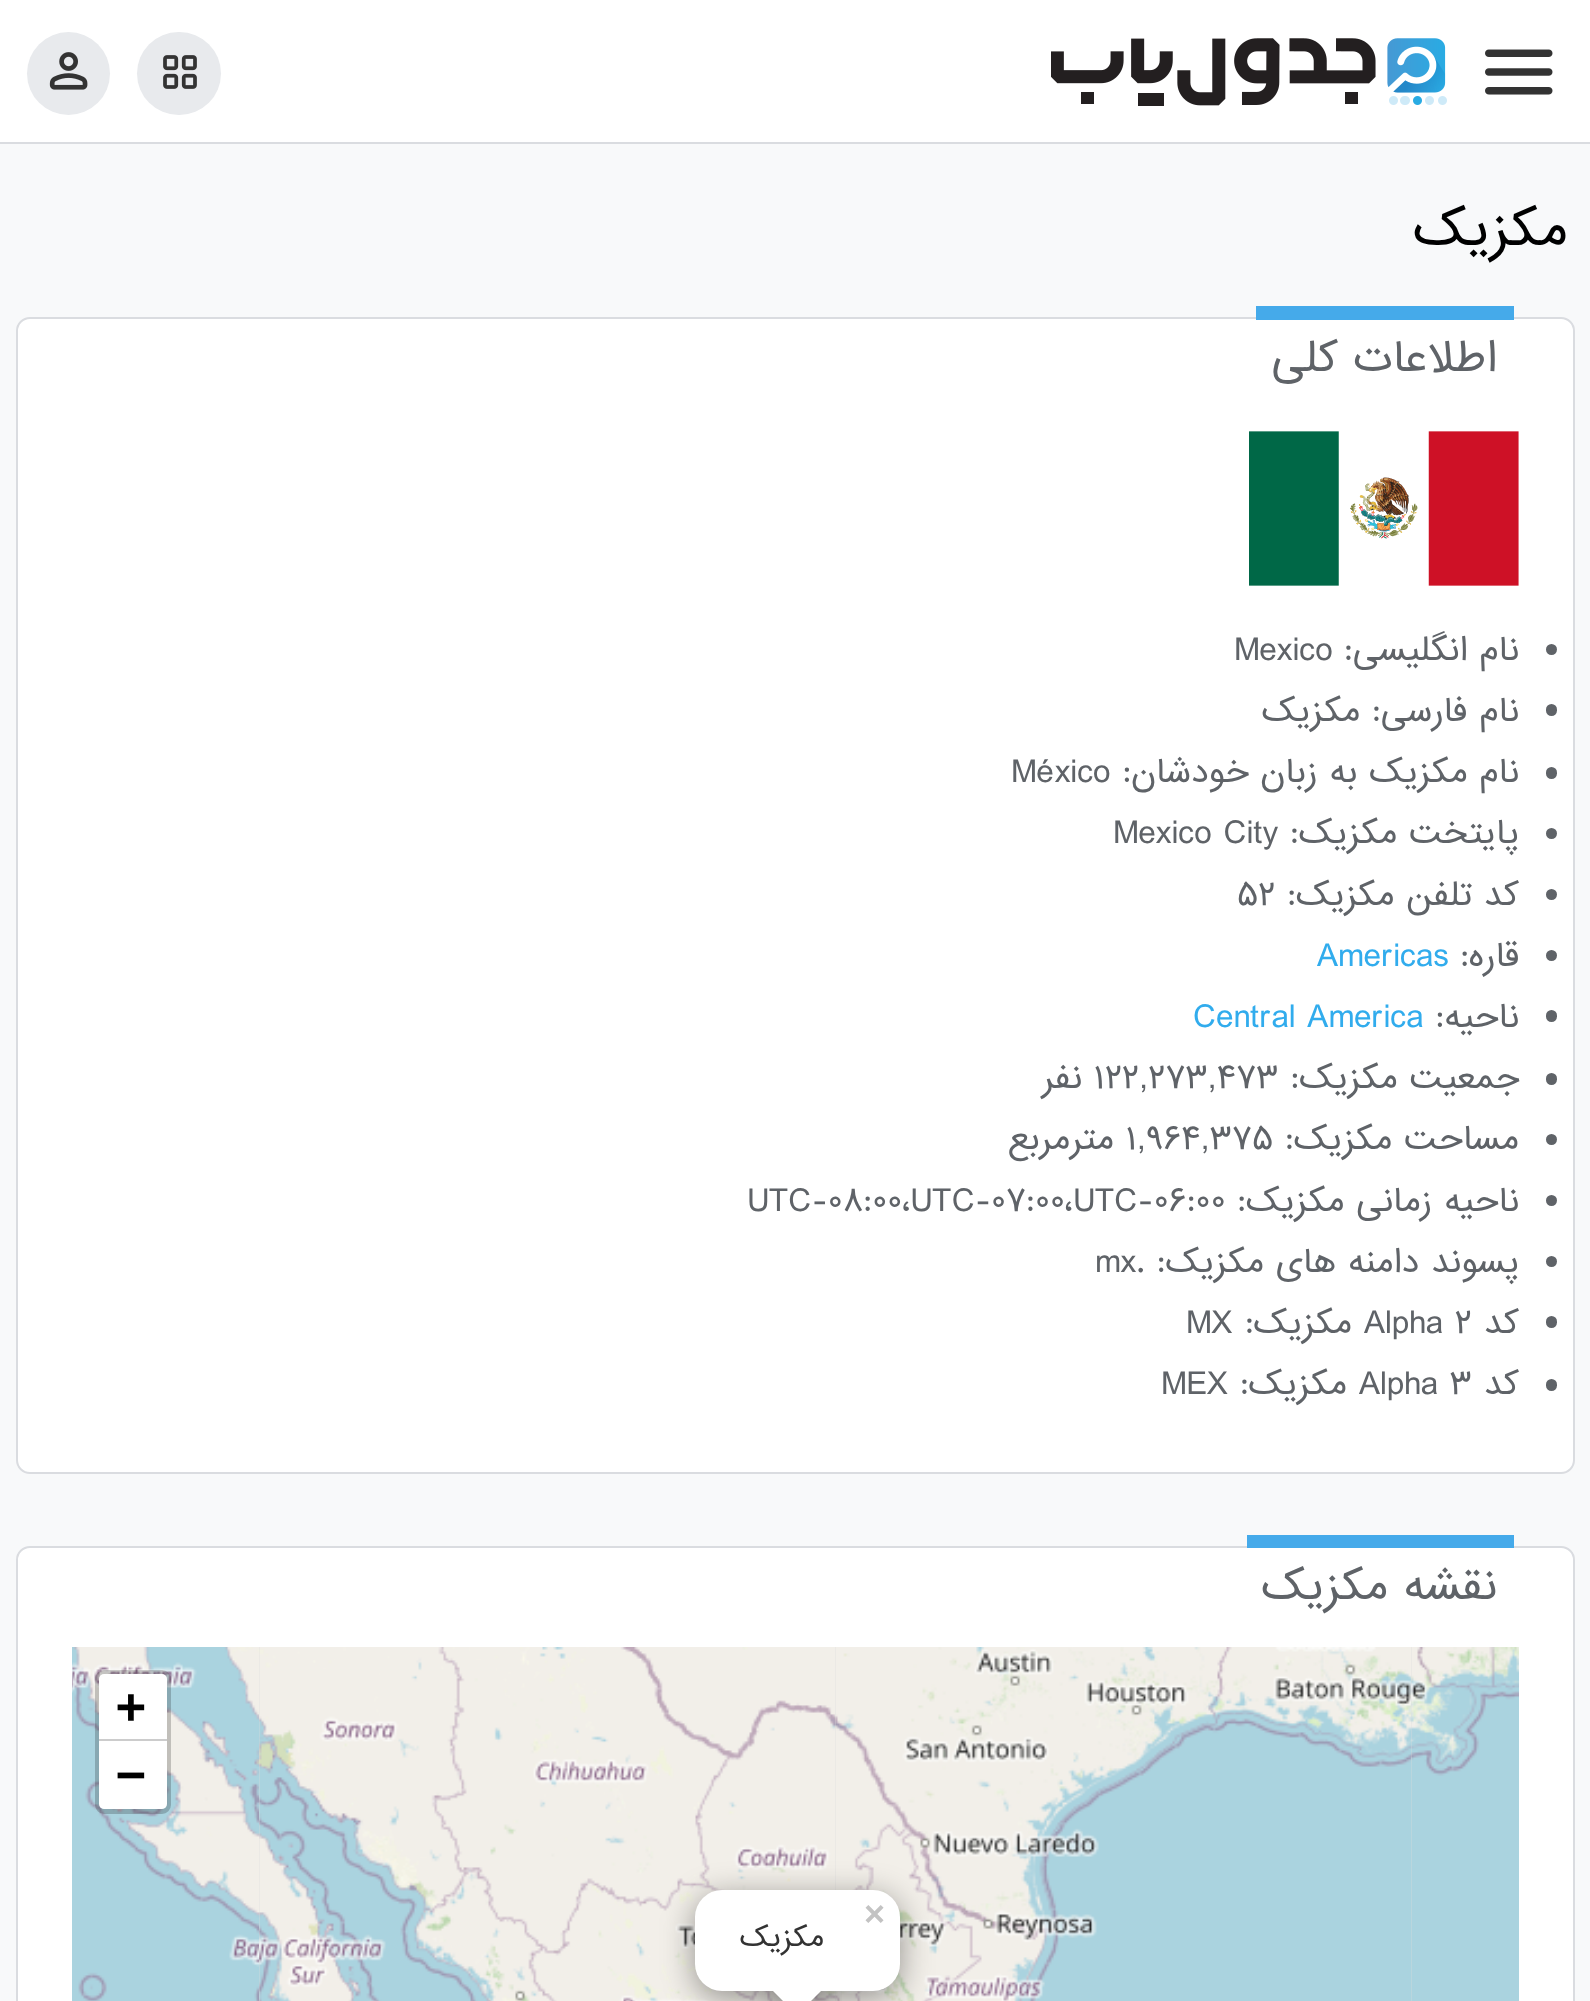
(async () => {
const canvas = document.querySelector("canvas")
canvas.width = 1590
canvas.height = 2001
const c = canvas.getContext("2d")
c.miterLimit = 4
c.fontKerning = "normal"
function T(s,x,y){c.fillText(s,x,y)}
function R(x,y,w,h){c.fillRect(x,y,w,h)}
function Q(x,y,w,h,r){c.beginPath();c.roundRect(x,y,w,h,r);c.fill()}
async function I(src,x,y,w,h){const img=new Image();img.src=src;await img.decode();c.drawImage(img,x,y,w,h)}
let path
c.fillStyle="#f8f9fa"
R(0,0,1590,2001)
c.fillStyle="#fff"
R(0,0,1590,142)
c.fillStyle="#dadce0"
R(0,142,1590,2)
await I("1.png",1485,49,68,46)
await I("2.png",1051,38,396,68)
c.fillStyle="#e8eaed"
Q(137,32,84,83,41.5)
await I("3.png",163,55,34,34)
c.beginPath()
c.arc(68.5,73.5,41.5,0,7)
c.fill()
await I("4.png",49,52,39,38)
c.direction="rtl"
c.font="49.5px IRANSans"
c.fillStyle="#000"
T("مکزیک",1568,245)
c.fillStyle="#fff"
c.beginPath()
c.roundRect(17,318,1557,1155,13)
c.fill()
c.strokeStyle="#dadce0"
c.lineWidth=2
c.stroke()
c.fillStyle="#45aaea"
R(1256,306,258,14)
c.font="40.5px IRANSans"
c.fillStyle="#5f6368"
T("اطلاعات کلی",1497,371)
await I("5.png",1249,431,270,155)
c.beginPath()
c.arc(1551.5,649.5,5.5,0,7)
c.fill()
c.font="31.5px IRANSans"
T("نام انگلیسی:",1519,660)
c.direction="ltr"
T("Mexico",1234,660)
Q(1546,704,11,12,5.5)
c.direction="rtl"
T("نام فارسی: مکزیک",1519,721)
Q(1546,767,11,12,5.5)
T("نام مکزیک به زبان خودشان:",1519,782)
c.direction="ltr"
T("México",1011,782)
c.beginPath()
c.arc(1551.5,833.5,5.5,0,7)
c.fill()
c.direction="rtl"
T("پایتخت مکزیک:",1519,843)
c.direction="ltr"
T("Mexico City",1113,843)
c.beginPath()
c.arc(1551.5,894.5,5.5,0,7)
c.fill()
c.direction="rtl"
T("کد تلفن مکزیک:",1519,905)
c.direction="ltr"
T("52",1237,905)
c.beginPath()
c.arc(1551.5,955.5,5.5,0,7)
c.fill()
c.direction="rtl"
T("قاره:",1519,966)
c.direction="ltr"
c.fillStyle="#31aced"
T("Americas",1317,966)
c.fillStyle="#5f6368"
Q(1546,1010,11,12,5.5)
c.direction="rtl"
T("ناحیه:",1519,1027)
c.direction="ltr"
c.fillStyle="#31aced"
T("Central America",1193,1027)
c.fillStyle="#5f6368"
Q(1546,1073,11,12,5.5)
c.direction="rtl"
T("جمعیت مکزیک:",1519,1088)
c.direction="ltr"
T("122,273,473",1094,1088)
c.direction="rtl"
T("نفر",1082,1088)
c.beginPath()
c.arc(1551.5,1139.5,5.5,0,7)
c.fill()
T("مساحت مکزیک:",1519,1149)
c.direction="ltr"
T("1,964,375",1126,1149)
c.direction="rtl"
T("مترمربع",1114,1149)
c.beginPath()
c.arc(1551.5,1200.5,5.5,0,7)
c.fill()
T("ناحیه زمانی مکزیک:",1519,1211)
c.direction="ltr"
T("UTC-08:00،UTC-07:00،UTC-06:00",747,1211)
c.beginPath()
c.arc(1551.5,1261.5,5.5,0,7)
c.fill()
c.direction="rtl"
T("پسوند دامنه های مکزیک: .",1519,1272)
c.direction="ltr"
T("mx",1095,1272)
Q(1546,1316,11,12,5.5)
c.direction="rtl"
T("کد",1519,1333)
c.direction="ltr"
T("Alpha 2",1364,1333)
c.direction="rtl"
T("مکزیک:",1352,1333)
c.direction="ltr"
T("MX",1186,1333)
Q(1546,1379,11,12,5.5)
c.direction="rtl"
T("کد",1519,1394)
c.direction="ltr"
T("Alpha 3",1359,1394)
c.direction="rtl"
T("مکزیک:",1347,1394)
c.direction="ltr"
T("MEX",1161,1394)
c.fillStyle="#fff"
c.beginPath()
c.roundRect(17,1547,1557,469,13)
c.fill()
c.stroke()
c.fillStyle="#45aaea"
R(1247,1535,267,13)
c.direction="rtl"
c.font="40.5px IRANSans"
c.fillStyle="#5f6368"
T("نقشه مکزیک",1497,1599)
c.fillStyle="#ddd"
R(259,1647,1153,354)
await I("9.png",72,1647,187,354)
c.beginPath()
c.roundRect(97.5,1672.5,71,139,6.5)
c.strokeStyle="#00000033"
c.lineWidth=5
c.stroke()
c.fillStyle="#fff"
c.beginPath()
c.roundRect(99,1674,68,68,[5,5,0,0])
c.fill()
c.fillStyle="#ccc"
R(99,1739,68,2)
c.direction="ltr"
c.font="bold 49.5px DejaVu Sans Mono"
c.fillStyle="#000"
T("+",116,1723)
c.fillStyle="#fff"
c.beginPath()
c.roundRect(99,1742,68,67,[0,0,5,5])
c.fill()
c.fillStyle="#000"
T("−",116,1791)
await I("8.png",259,1647,576,354)
await I("7.png",834,1647,577,354)
await I("6.png",1410,1647,109,354)
c.fillStyle="#00000066"
c.filter="blur(16px)"
c.beginPath()
c.roundRect(695,1897,205,101,27)
c.fill()
c.filter="none"
c.fillStyle="#fff"
Q(695,1890,205,101,27)
c.font="bold 36px Liberation Sans"
c.fillStyle="#c3c3c3"
T("×",864,1926)
c.direction="rtl"
c.font="27px IRANSans"
c.fillStyle="#333"
T("مکزیک",824,1946)
c.save()
c.beginPath()
c.rect(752,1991,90,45)
c.clip()
c.fillStyle="#00000066"
c.filter="blur(16px)"
c.beginPath()
c.rect(779,1976,38,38)
c.fill()
c.filter="none"
c.restore()
c.save()
c.beginPath()
c.rect(752,1991,90,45)
c.clip()
c.fillStyle="#fff"
path = new Path2D("M797 1960l27 28l-27 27l-27-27z")
c.fill(path)
c.restore()
})()
